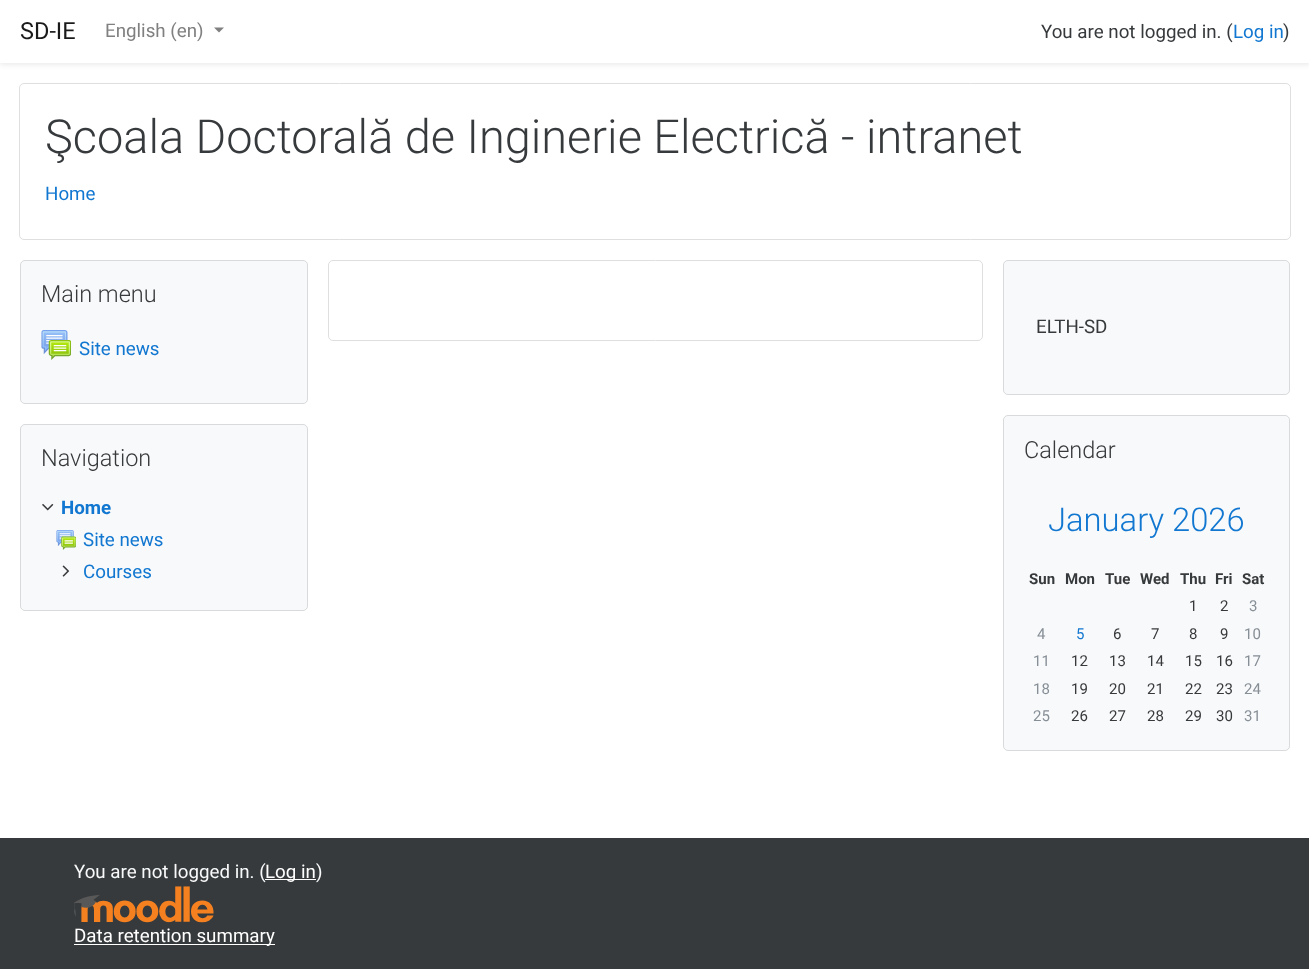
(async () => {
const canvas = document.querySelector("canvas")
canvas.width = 1309
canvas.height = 969
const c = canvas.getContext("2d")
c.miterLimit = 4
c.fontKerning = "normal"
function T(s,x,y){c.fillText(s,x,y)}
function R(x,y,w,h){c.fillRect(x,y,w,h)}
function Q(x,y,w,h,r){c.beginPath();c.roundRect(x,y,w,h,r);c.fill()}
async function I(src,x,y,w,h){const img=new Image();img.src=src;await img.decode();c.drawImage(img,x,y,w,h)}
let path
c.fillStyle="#fff"
R(0,0,1309,969)
c.fillStyle="#00000014"
c.filter="blur(2.5px)"
c.beginPath()
c.rect(0,3,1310,62)
c.fill()
c.filter="none"
c.fillStyle="#fff"
R(0,0,1309,63)
c.font="23.5px Roboto"
c.fillStyle="#1a1a1a"
T("SD-IE",20,39)
c.font="18.75px Roboto"
c.fillStyle="#808080"
T("English (en)",105,37)
path = new Path2D("M214 27.5h10l-5 5z")
c.fill(path)
c.fillStyle="#373a3c"
T("You are not logged in. (",1041,38)
c.fillStyle="#1177d1"
T("Log in",1233,38)
c.fillStyle="#373a3c"
T(")",1283,38)
c.beginPath()
c.roundRect(19.5,83.5,1271,156,4.5)
c.strokeStyle="#dfdfdf"
c.stroke()
c.font="300 46.9px Roboto"
T("Şcoala Doctorală de Inginerie Electrică - intranet",45,153)
c.font="18.75px Roboto"
c.fillStyle="#1177d1"
T("Home",45,200)
c.fillStyle="#f8f9fa"
Q(20,260,288,144,5)
c.beginPath()
c.roundRect(20.5,260.5,287,143,4.5)
c.strokeStyle="#0000001f"
c.stroke()
c.font="300 23.5px Roboto"
c.fillStyle="#373a3c"
T("Main menu",41,302)
await I("1.png",41,330,30,30)
c.font="18.75px Roboto"
c.fillStyle="#1177d1"
T("Site news",79,355)
c.fillStyle="#f8f9fa"
Q(20,424,288,187,5)
c.beginPath()
c.roundRect(20.5,424.5,287,186,4.5)
c.stroke()
c.font="300 23.5px Roboto"
c.fillStyle="#373a3c"
T("Navigation",41,466)
await I("2.png",42,503,12,8)
c.font="bold 18.75px Roboto"
c.fillStyle="#1177d1"
T("Home",61,514)
await I("3.png",56,530,20,20)
c.font="18.75px Roboto"
T("Site news",83,546)
await I("4.png",62,565,8,12)
T("Courses",83,578)
c.beginPath()
c.roundRect(328.5,260.5,654,80,4.5)
c.strokeStyle="#dfdfdf"
c.stroke()
c.fillStyle="#f8f9fa"
Q(1003,260,287,135,5)
c.beginPath()
c.roundRect(1003.5,260.5,286,134,4.5)
c.strokeStyle="#0000001f"
c.stroke()
c.fillStyle="#373a3c"
T("ELTH-SD",1036,333)
c.fillStyle="#f8f9fa"
Q(1003,415,287,336,5)
c.beginPath()
c.roundRect(1003.5,415.5,286,335,4.5)
c.stroke()
c.font="300 23.5px Roboto"
c.fillStyle="#373a3c"
T("Calendar",1024,458)
c.font="300 32.75px Roboto"
c.fillStyle="#1177d1"
T("January 2026",1048,531)
c.font="bold 15px Roboto"
c.fillStyle="#373a3c"
T("Sun",1029,584)
T("Mon",1065,584)
T("Tue",1105,584)
T("Wed",1140,584)
T("Thu",1180,584)
T("Fri",1215,584)
T("Sat",1242,584)
c.font="15px Roboto"
T("1",1189,611)
T("2",1220,611)
c.fillStyle="#868e96"
T("3",1249,611)
T("4",1037,639)
c.fillStyle="#1177d1"
T("5",1076,639)
c.fillStyle="#373a3c"
T("6",1113,639)
T("7",1151,639)
T("8",1189,639)
T("9",1220,639)
c.fillStyle="#868e96"
T("10",1244,639)
T("11",1033,666)
c.fillStyle="#373a3c"
T("12",1071,666)
T("13",1109,666)
T("14",1147,666)
T("15",1185,666)
T("16",1216,666)
c.fillStyle="#868e96"
T("17",1244,666)
T("18",1033,694)
c.fillStyle="#373a3c"
T("19",1071,694)
T("20",1109,694)
T("21",1147,694)
T("22",1185,694)
T("23",1216,694)
c.fillStyle="#868e96"
T("24",1244,694)
T("25",1033,721)
c.fillStyle="#373a3c"
T("26",1071,721)
T("27",1109,721)
T("28",1147,721)
T("29",1185,721)
T("30",1216,721)
c.fillStyle="#868e96"
T("31",1244,721)
c.fillStyle="#373a3c"
R(0,838,1309,131)
c.font="18.75px Roboto"
c.fillStyle="#f8f9fa"
T("You are not logged in. (",74,878)
c.fillStyle="#fff"
R(265,879,51,1)
T("Log in",265,878)
c.fillStyle="#f8f9fa"
T(")",316,878)
await I("5.png",74,886,140,37)
c.fillStyle="#fff"
R(74,944,201,1)
T("Data retention summary",74,942)
})()
